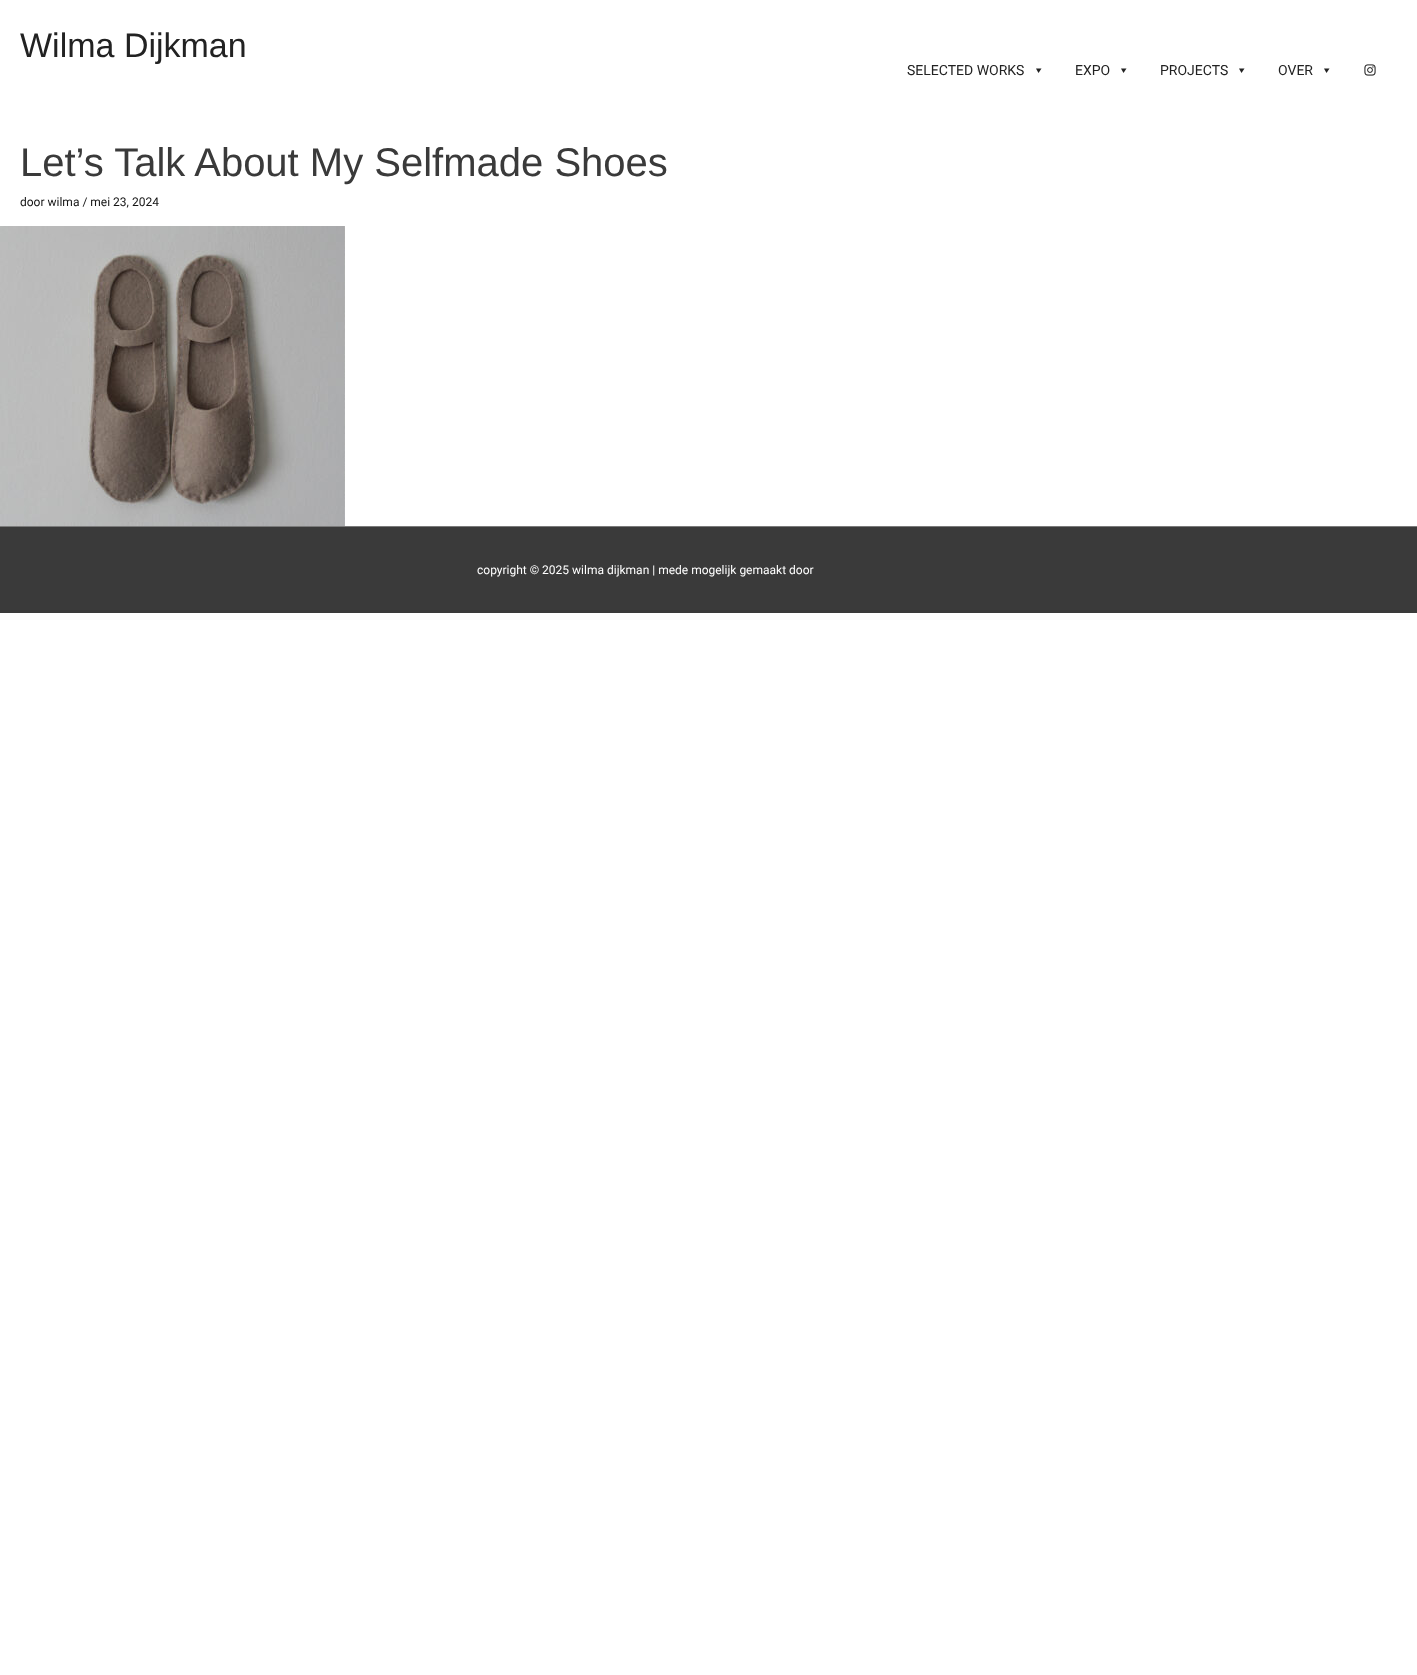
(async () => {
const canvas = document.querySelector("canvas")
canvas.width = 1417
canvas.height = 1675
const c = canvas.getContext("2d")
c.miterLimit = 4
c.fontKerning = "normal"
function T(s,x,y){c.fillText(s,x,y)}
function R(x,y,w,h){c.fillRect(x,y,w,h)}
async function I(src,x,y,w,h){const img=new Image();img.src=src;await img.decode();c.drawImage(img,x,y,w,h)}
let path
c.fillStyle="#fff"
R(0,0,1417,1675)
c.font="34px Liberation Sans"
c.fillStyle="#222"
T("Wilma Dijkman",20,57)
c.font="14px Roboto"
T("SELECTED WORKS",907,75)
path = new Path2D("M1041.5 68.5l-3 4.5l-2.5-4.5z")
c.fill(path)
T("EXPO",1075,75)
path = new Path2D("M1126.5 68.5l-3 4.5l-2.5-4.5z")
c.fill(path)
T("PROJECTS",1160,75)
path = new Path2D("M1244.5 68.5l-3 4.5l-2.5-4.5z")
c.fill(path)
T("OVER",1278,75)
path = new Path2D("M1329.5 68.5l-3 4.5l-2.5-4.5z")
c.fill(path)
await I("1.png",1364,64,12,12)
c.font="40px Liberation Sans"
c.fillStyle="#3a3a3a"
T("Let’s Talk About My Selfmade Shoes",20,176)
c.font="12px Roboto"
c.fillStyle="#141414"
T("door wilma / mei 23, 2024",20,206)
await I("2.png",0,226,345,300)
c.fillStyle="#7a7a7a"
R(0,526,1417,1)
c.fillStyle="#3a3a3a"
R(0,527,1417,86)
c.fillStyle="#fff"
T("copyright © 2025 wilma dijkman | mede mogelijk gemaakt door",477,574)
})()
